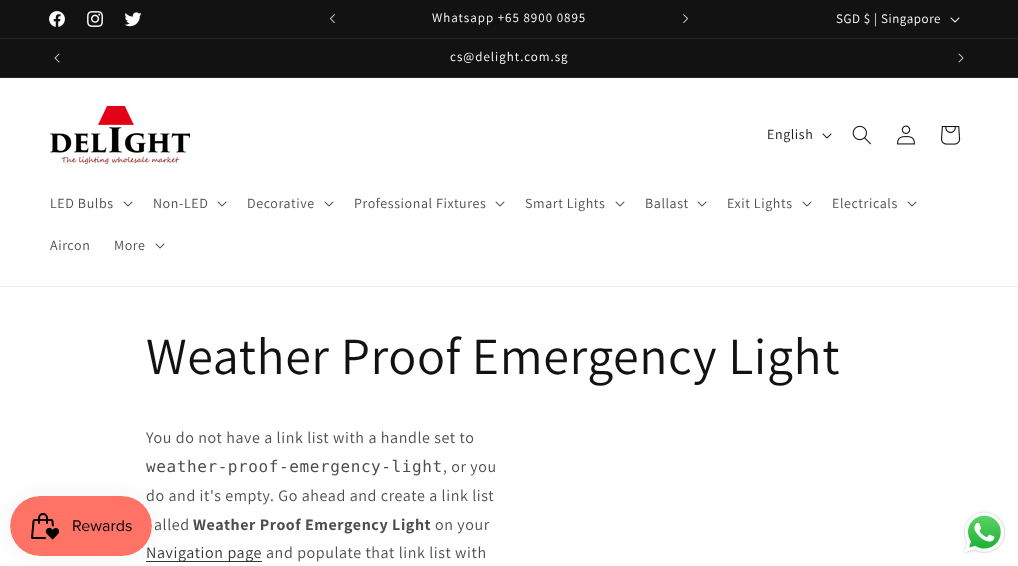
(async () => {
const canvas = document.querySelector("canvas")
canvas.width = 1018
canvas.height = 566
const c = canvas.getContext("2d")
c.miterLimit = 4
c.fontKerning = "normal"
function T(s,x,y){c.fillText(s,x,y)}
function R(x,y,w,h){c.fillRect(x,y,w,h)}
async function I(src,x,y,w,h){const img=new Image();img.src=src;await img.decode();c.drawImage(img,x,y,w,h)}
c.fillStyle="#fff"
R(0,0,1018,566)
c.fillStyle="#121212"
R(0,0,1018,38)
c.fillStyle="#252525"
R(0,38,1018,1)
await I("1.png",49,11,16,16)
await I("2.png",87,11,16,16)
await I("3.png",124,12,18,15)
await I("4.png",330,14,5,9)
c.letterSpacing="1px"
c.font="13px Assistant"
c.fillStyle="#fff"
T("Whatsapp +65 8900 0895",432,22)
await I("5.png",683,14,5,9)
c.letterSpacing="0.6px"
T("SGD $ | Singapore",836,23)
await I("6.png",950,17,10,6)
c.fillStyle="#121212"
R(0,39,1018,38)
c.fillStyle="#252525"
R(0,77,1018,1)
await I("7.png",54,53,6,10)
c.letterSpacing="1px"
c.fillStyle="#fff"
T("cs@delight.com.sg",450,61)
await I("8.png",958,53,6,10)
c.fillStyle="#ececec"
R(0,286,1018,1)
await I("9.png",50,106,140,58)
c.letterSpacing="0.6px"
c.font="14px Assistant"
c.fillStyle="#121212"
T("English",767,139)
await I("10.png",822,133,10,6)
await I("11.png",852,125,19,20)
await I("12.png",897,125,18,20)
await I("13.png",941,126,20,19)
c.fillStyle="#4d4d4d"
T("LED Bulbs",50,208)
await I("14.png",123,201,10,6)
T("Non-LED",153,208)
await I("14.png",217,201,10,6)
T("Decorative",247,208)
await I("14.png",324,201,10,6)
T("Professional Fixtures",354,208)
await I("14.png",495,201,10,6)
T("Smart Lights",525,208)
await I("14.png",615,201,10,6)
T("Ballast",645,208)
await I("14.png",697,201,10,6)
T("Exit Lights",727,208)
await I("14.png",802,201,10,6)
T("Electricals",832,208)
await I("14.png",907,201,10,6)
T("Aircon",50,250)
T("More",114,250)
await I("14.png",155,243,10,6)
c.fillStyle="#363636"
R(146,561,116,1)
c.fillStyle="#0000000d"
c.filter="blur(12.5px)"
c.beginPath()
c.roundRect(10,496,142,60,30)
c.fill()
c.filter="none"
c.font="16px Assistant"
c.fillStyle="#4d4d4d"
T("do and it's empty. Go ahead and create a link list",146,501)
c.fillStyle="#353535"
T("Navigation page",146,558)
await I("15.png",10,496,142,60)
c.font="52px Assistant"
c.fillStyle="#121212"
T("Weather Proof Emergency Light",146,374)
c.font="16px Assistant"
c.fillStyle="#4d4d4d"
T("You do not have a link list with a handle set to",146,443)
c.font="16px DejaVu Sans Mono"
T("weather-proof-emergency-light",146,472)
c.font="16px Assistant"
T(", or you",443,472)
T("alled",154,530)
c.font="bold 16px Assistant"
T("Weather Proof Emergency Light",193,530)
c.font="16px Assistant"
T("on your",435,530)
T("and populate that link list with",266,558)
await I("16.png",963,511,43,43)
})()
